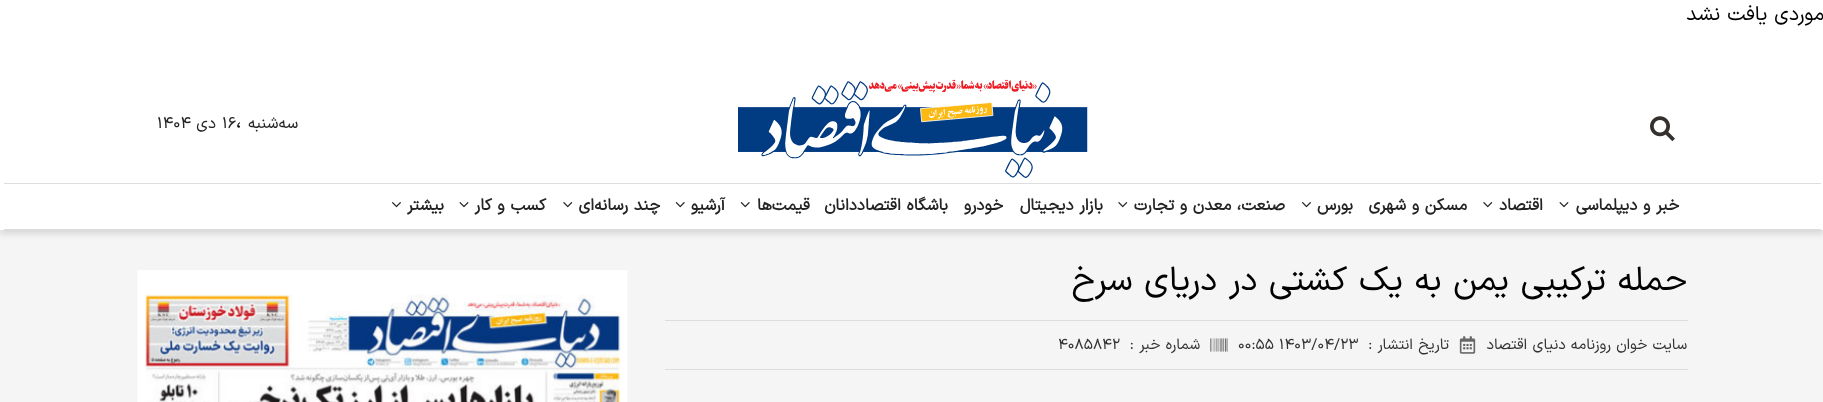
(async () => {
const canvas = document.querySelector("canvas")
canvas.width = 1823
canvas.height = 402
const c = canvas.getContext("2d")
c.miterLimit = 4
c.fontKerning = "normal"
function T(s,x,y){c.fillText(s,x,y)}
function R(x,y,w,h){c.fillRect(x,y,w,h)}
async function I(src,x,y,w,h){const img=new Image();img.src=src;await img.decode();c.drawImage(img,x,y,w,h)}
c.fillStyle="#f5f5f5"
R(0,0,1823,402)
c.fillStyle="#32323226"
c.filter="blur(3px)"
c.beginPath()
c.rect(0,4,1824,230)
c.fill()
c.filter="none"
c.fillStyle="#fff"
R(0,0,1823,230)
c.direction="rtl"
c.font="20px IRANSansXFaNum"
c.fillStyle="#000"
T("موردی یافت نشد",1824,20)
await I("1.png",738,79,350,99)
c.fillStyle="#ddd"
R(4,183,1817,1)
R(4,229,1817,1)
c.font="16px IRANSansXFaNum"
c.fillStyle="#242424"
T("سه‌شنبه",298,128)
c.direction="ltr"
c.font="20px IRANSansXFaNum"
c.fillStyle="#000"
T("،",236,128)
c.font="16px IRANSansXFaNum"
c.fillStyle="#242424"
T("۱۶",222,128)
c.direction="rtl"
T("دی",216,128)
c.direction="ltr"
T("۱۴۰۴",157,128)
c.direction="rtl"
c.font="bold 16.25px IRANSansXFaNum"
T("خبر و دیپلماسی",1679,210)
await I("2.png",1559,202,10,6)
T("اقتصاد",1543,210)
await I("3.png",1483,202,10,6)
T("مسکن و شهری",1467,210)
T("بورس",1353,210)
await I("4.png",1302,202,9,6)
T("صنعت، معدن و تجارت",1285,210)
await I("3.png",1118,202,10,6)
T("بازار دیجیتال",1103,210)
T("خودرو",1003,210)
T("باشگاه اقتصاددانان",948,210)
T("قیمت‌ها",810,210)
await I("5.png",740,202,10,6)
T("آرشیو",725,210)
await I("5.png",675,202,10,6)
T("چند رسانه‌ای",660,210)
await I("3.png",563,202,10,6)
T("کسب و کار",546,210)
await I("2.png",459,202,10,6)
T("بیشتر",444,210)
await I("4.png",392,202,9,6)
await I("6.png",1650,116,25,26)
c.font="33.75px IRANSansXFaNum"
c.fillStyle="#000"
T("حمله ترکیبی یمن به یک کشتی در دریای سرخ",1687,290)
c.fillStyle="#ddd"
R(665,320,1023,1)
R(665,369,1023,1)
c.font="15px IRANSansXFaNum"
c.fillStyle="#333"
T("سایت خوان روزنامه دنیای اقتصاد",1687,349)
await I("7.png",1459,336,17,18)
T("تاریخ انتشار :",1449,349)
c.direction="ltr"
T("۰۰:۵۵ ۱۴۰۳/۰۴/۲۳",1238,349)
await I("8.png",1210,338,18,14)
c.direction="rtl"
T("شماره خبر :",1200,349)
c.direction="ltr"
T("۴۰۸۵۸۴۲",1058,349)
await I("9.png",137,270,491,132)
})()
